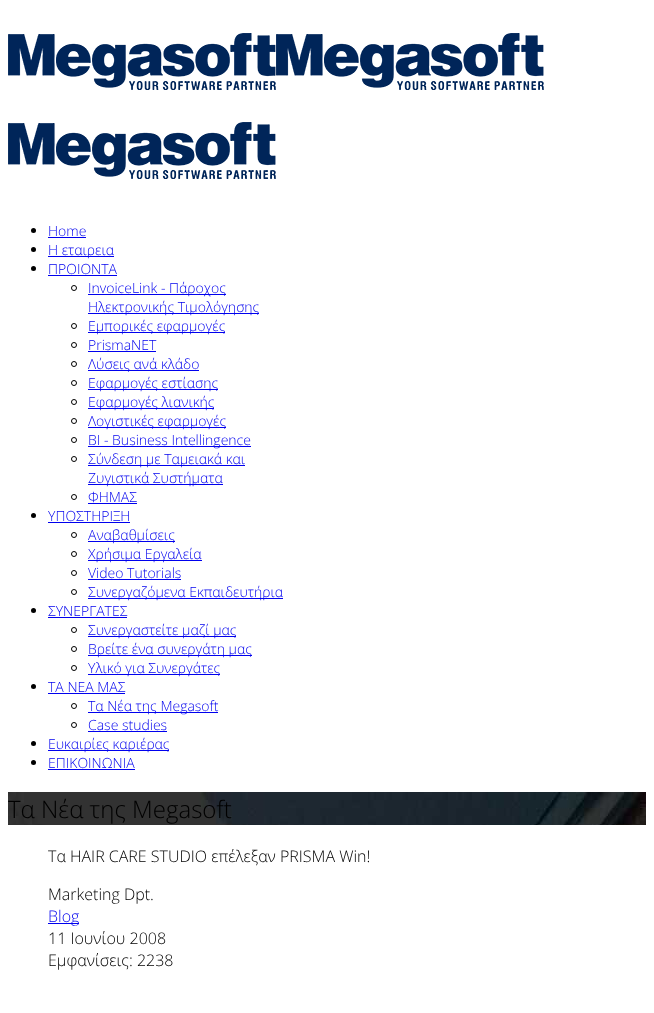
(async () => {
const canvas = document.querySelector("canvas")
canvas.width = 654
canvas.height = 1013
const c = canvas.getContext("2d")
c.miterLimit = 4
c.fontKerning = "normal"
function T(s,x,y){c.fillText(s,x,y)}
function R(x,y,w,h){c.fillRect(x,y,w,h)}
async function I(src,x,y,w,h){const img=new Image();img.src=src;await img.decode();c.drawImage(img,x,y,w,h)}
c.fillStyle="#fff"
R(0,0,654,1013)
await I("1.png",8,33,268,57)
await I("1.png",276,33,268,57)
await I("1.png",8,122,268,57)
c.fillStyle="#000"
c.beginPath()
c.arc(33.5,230.5,2.5,0,7)
c.fill()
c.font="300 14px Open Sans"
c.fillStyle="#00e"
T("Home",48,236)
R(48,237,38,1)
c.fillStyle="#000"
c.beginPath()
c.arc(33.5,249.5,2.5,0,7)
c.fill()
c.fillStyle="#00e"
R(48,256,66,1)
T("H εταιρεια",48,255)
c.fillStyle="#000"
c.beginPath()
c.arc(33.5,268.5,2.5,0,7)
c.fill()
c.fillStyle="#00e"
T("ΠΡΟΙΟΝΤΑ",48,274)
R(48,275,69,1)
c.beginPath()
c.arc(74,288,2.5,0,7)
c.strokeStyle="#000"
c.stroke()
R(88,294,138,1)
T("InvoiceLink - Πάροχος",88,293)
R(88,313,171,1)
T("Ηλεκτρονικής Τιμολόγησης",88,312)
c.beginPath()
c.arc(74,326,2.5,0,7)
c.stroke()
R(88,332,137,1)
T("Εμπορικές εφαρμογές",88,331)
c.beginPath()
c.arc(74,345,2.5,0,7)
c.stroke()
T("PrismaNET",88,350)
R(88,351,68,1)
c.beginPath()
c.arc(74,364,2.5,0,7)
c.stroke()
R(88,370,111,1)
T("Λύσεις ανά κλάδο",88,369)
c.beginPath()
c.arc(74,383,2.5,0,7)
c.stroke()
R(88,389,130,1)
T("Εφαρμογές εστίασης",88,388)
c.beginPath()
c.arc(74,402,2.5,0,7)
c.stroke()
R(88,408,126,1)
T("Εφαρμογές λιανικής",88,407)
c.beginPath()
c.arc(74,421,2.5,0,7)
c.stroke()
R(88,427,138,1)
T("Λογιστικές εφαρμογές",88,426)
c.beginPath()
c.arc(74,440,2.5,0,7)
c.stroke()
R(88,446,163,1)
T("BI - Business Intellingence",88,445)
c.beginPath()
c.arc(74,459,2.5,0,7)
c.stroke()
R(88,465,157,1)
T("Σύνδεση με Ταμειακά και",88,464)
R(88,484,135,1)
T("Ζυγιστικά Συστήματα",88,483)
c.beginPath()
c.arc(74,497,2.5,0,7)
c.stroke()
T("ΦΗΜΑΣ",88,502)
R(88,503,49,1)
c.fillStyle="#000"
c.beginPath()
c.arc(33.5,515.5,2.5,0,7)
c.fill()
c.fillStyle="#00e"
T("ΥΠΟΣΤΗΡΙΞΗ",48,521)
R(48,522,82,1)
c.beginPath()
c.arc(74,535,2.5,0,7)
c.stroke()
R(88,541,87,1)
T("Αναβαθμίσεις",88,540)
c.beginPath()
c.arc(74,554,2.5,0,7)
c.stroke()
R(88,560,114,1)
T("Χρήσιμα Εργαλεία",88,559)
c.beginPath()
c.arc(74,573,2.5,0,7)
c.stroke()
T("Video Tutorials",88,578)
R(88,579,93,1)
c.beginPath()
c.arc(74,592,2.5,0,7)
c.stroke()
R(88,598,195,1)
T("Συνεργαζόμενα Εκπαιδευτήρια",88,597)
c.fillStyle="#000"
c.beginPath()
c.arc(33.5,610.5,2.5,0,7)
c.fill()
c.fillStyle="#00e"
T("ΣΥΝΕΡΓΑΤΕΣ",48,616)
R(48,617,79,1)
c.beginPath()
c.arc(74,630,2.5,0,7)
c.stroke()
R(88,636,148,1)
T("Συνεργαστείτε μαζί μας",88,635)
c.beginPath()
c.arc(74,649,2.5,0,7)
c.stroke()
R(88,655,164,1)
T("Βρείτε ένα συνεργάτη μας",88,654)
c.beginPath()
c.arc(74,668,2.5,0,7)
c.stroke()
R(88,674,132,1)
T("Υλικό για Συνεργάτες",88,673)
c.fillStyle="#000"
c.beginPath()
c.arc(33.5,686.5,2.5,0,7)
c.fill()
c.fillStyle="#00e"
T("ΤΑ ΝΕΑ ΜΑΣ",48,692)
R(48,693,77,1)
c.beginPath()
c.arc(74,706,2.5,0,7)
c.stroke()
R(88,712,130,1)
T("Τα Νέα της Megasoft",88,711)
c.beginPath()
c.arc(74,725,2.5,0,7)
c.stroke()
T("Case studies",88,730)
R(88,731,79,1)
c.fillStyle="#000"
c.beginPath()
c.arc(33.5,743.5,2.5,0,7)
c.fill()
c.fillStyle="#00e"
R(48,750,121,1)
T("Ευκαιρίες καριέρας",48,749)
c.fillStyle="#000"
c.beginPath()
c.arc(33.5,762.5,2.5,0,7)
c.fill()
c.fillStyle="#00e"
T("ΕΠΙΚΟΙΝΩΝΙΑ",48,768)
R(48,769,87,1)
await I("2.png",8,792,638,33)
c.font="300 24px Open Sans"
c.fillStyle="#000"
T("Τα Νέα της Megasoft",8,818)
c.font="300 16px Open Sans"
T("Τα HAIR CARE STUDIO επέλεξαν PRISMA Win!",48,862)
T("Marketing Dpt.",48,900)
c.fillStyle="#00e"
R(48,923,31,1)
T("Blog",48,922)
c.fillStyle="#000"
T("11 Ιουνίου 2008",48,944)
T("Εμφανίσεις: 2238",48,966)
})()
